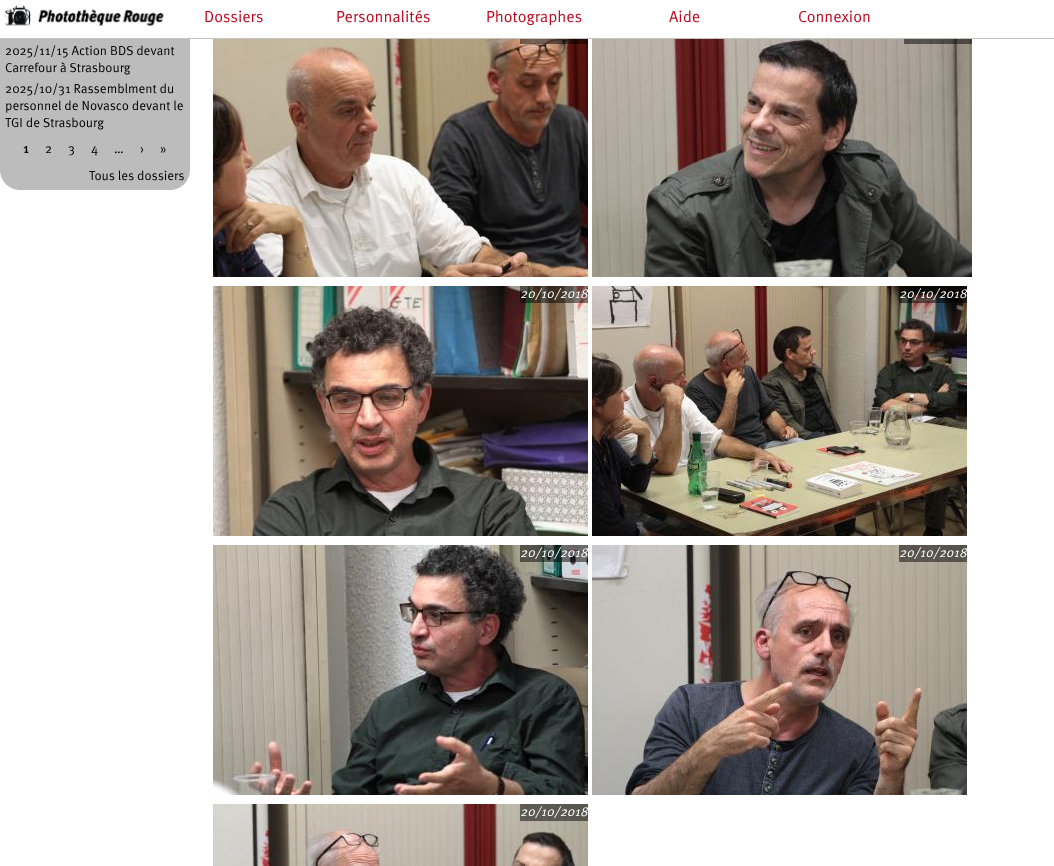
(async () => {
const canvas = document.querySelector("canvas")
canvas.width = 1054
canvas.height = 866
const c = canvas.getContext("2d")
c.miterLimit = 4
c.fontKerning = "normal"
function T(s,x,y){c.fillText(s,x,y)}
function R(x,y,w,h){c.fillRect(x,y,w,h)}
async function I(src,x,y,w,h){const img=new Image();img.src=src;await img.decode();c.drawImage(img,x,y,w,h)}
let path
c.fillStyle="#fff"
R(0,0,1054,866)
c.fillStyle="#bcbcbc"
path = new Path2D("M0-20h170c11 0 20 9 20 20v170c0 11-9 20-20 20h-150c-11 0-20-9-20-20z")
c.fill(path)
c.fillStyle="#fff"
R(0,0,190,38)
c.fillStyle="#c4c4c4"
R(0,38,1054,1)
await I("1.png",5,5,159,21)
c.font="16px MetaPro"
c.fillStyle="#c0081f"
T("Dossiers",204,22)
T("Personnalités",336,22)
T("Photographes",486,22)
T("Aide",669,22)
T("Connexion",798,22)
c.font="13px MetaPro"
c.fillStyle="#000"
T("2025/11/15 Action BDS devant",5,55)
T("Carrefour à Strasbourg",5,72)
T("2025/10/31 Rassemblment du",5,93)
T("personnel de Novasco devant le",5,110)
T("TGI de Strasbourg",5,127)
c.font="bold 13px MetaPro"
T("1",23,153)
c.font="13px MetaPro"
T("2",45,153)
T("3",68,153)
T("4",91,153)
T("…",114,153)
T("›",140,153)
T("»",160,153)
T("Tous les dossiers",89,180)
await I("2.png",213,39,375,238)
c.fillStyle="#00000080"
R(520,39,68,5)
await I("3.png",592,39,380,238)
R(904,39,68,5)
await I("4.png",213,286,375,250)
R(520,286,68,17)
c.font="italic 13px MetaPro"
c.fillStyle="#fff"
T("20/10/2018",520,298)
await I("5.png",592,286,375,250)
c.fillStyle="#00000080"
R(899,286,68,17)
c.fillStyle="#fff"
T("20/10/2018",899,298)
await I("6.png",213,545,375,250)
c.fillStyle="#00000080"
R(520,545,68,17)
c.fillStyle="#fff"
T("20/10/2018",520,557)
await I("7.png",592,545,375,250)
c.fillStyle="#00000080"
R(899,545,68,17)
c.fillStyle="#fff"
T("20/10/2018",899,557)
await I("8.png",213,804,375,62)
c.fillStyle="#00000080"
R(520,804,68,17)
c.fillStyle="#fff"
T("20/10/2018",520,816)
})()
